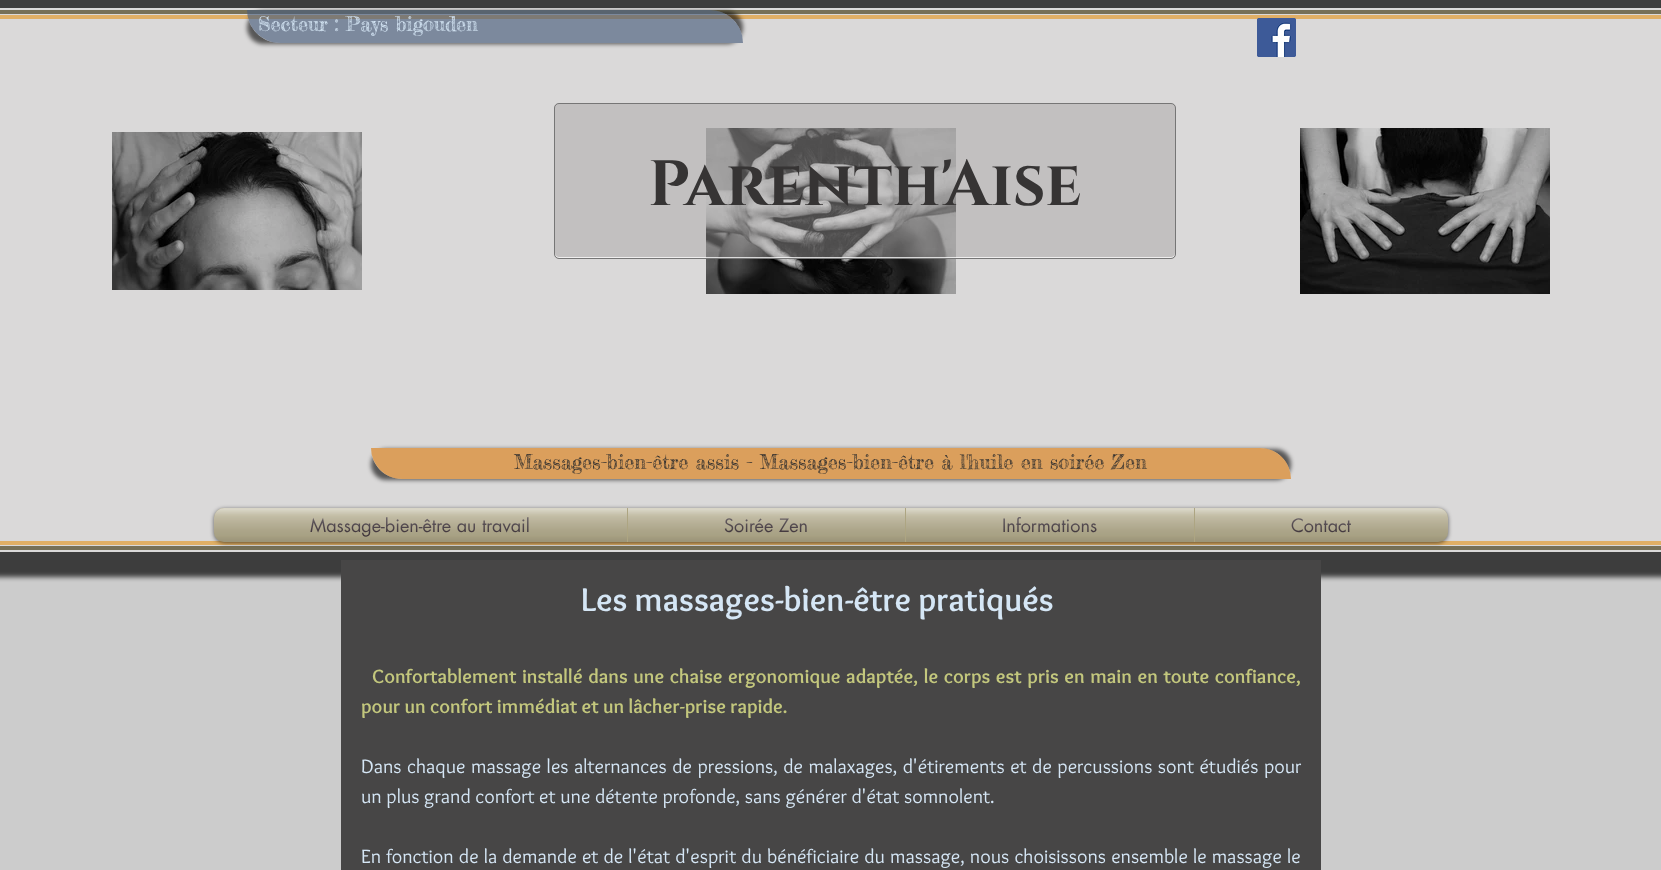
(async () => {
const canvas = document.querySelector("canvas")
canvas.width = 1661
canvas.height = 870
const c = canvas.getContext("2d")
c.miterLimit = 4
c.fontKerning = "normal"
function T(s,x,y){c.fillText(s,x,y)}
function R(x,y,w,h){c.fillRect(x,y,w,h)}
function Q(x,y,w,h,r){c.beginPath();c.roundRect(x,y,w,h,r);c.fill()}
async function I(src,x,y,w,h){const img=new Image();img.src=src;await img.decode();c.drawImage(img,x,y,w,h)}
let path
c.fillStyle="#ccc"
R(0,0,1661,870)
c.fillStyle="#000000b3"
c.filter="blur(2.5px)"
c.beginPath()
c.rect(-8,-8,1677,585)
c.fill()
c.filter="none"
c.fillStyle="#dad9d9"
R(0,8,1661,544)
c.fillStyle="#767057"
R(0,10,1661,4)
R(0,546,1661,4)
c.fillStyle="#e0af65"
R(0,15,1661,4)
R(0,541,1661,4)
c.save()
path = new Path2D("M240 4h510v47h-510zm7 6h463c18 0 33 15 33 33h-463c-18 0-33-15-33-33z")
c.clip(path,"evenodd")
c.fillStyle="#00000099"
c.filter="blur(2px)"
c.beginPath()
c.roundRect(247,11,496,33,33)
c.fill()
c.filter="none"
c.restore()
c.fillStyle="#4a5e7da6"
c.beginPath()
c.roundRect(247,10,496,33,[0,33,0,33])
c.fill()
c.font="20px Fredericka the Great"
c.fillStyle="#d5e6f5"
T("Secteur : Pays bigouden",258,31)
await I("1.png",1257,18,39,39)
await I("2.png",112,132,250,158)
await I("3.png",706,128,250,166)
await I("4.png",1300,128,250,166)
c.fillStyle="#a6a4a475"
Q(554,103,622,156,5)
c.fillStyle="#ffffffbf"
path = new Path2D("M555 253v1c0 2 2 4 4 4h612c2 0 4-2 4-4v-1c0 2-2 4-4 4h-612c-2 0-4-2-4-4z")
c.fill(path)
c.beginPath()
c.roundRect(554.5,103.5,621,155,4.5)
c.strokeStyle="#767676"
c.stroke()
c.font="bold 64px Cinzel"
c.fillStyle="#363434"
T("Parenth'Aise",648,205)
c.save()
path = new Path2D("M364 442h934v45h-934zm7 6h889c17 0 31 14 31 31h-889c-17 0-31-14-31-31z")
c.clip(path,"evenodd")
c.fillStyle="#00000099"
c.filter="blur(2px)"
c.beginPath()
c.roundRect(371,449,920,31,31)
c.fill()
c.filter="none"
c.restore()
c.fillStyle="#db8018a6"
c.beginPath()
c.roundRect(371,448,920,31,[0,31,0,31])
c.fill()
c.font="20px Fredericka the Great"
c.fillStyle="#2f2e2e"
T("Massages-bien-être assis - Massages-bien-être à l'huile en soirée Zen",514,469)
c.fillStyle="#00000099"
c.filter="blur(2px)"
c.beginPath()
c.roundRect(214,509,1234,34,10)
c.fill()
c.filter="none"
await I("5.png",214,508,1234,34)
await I("6.png",214,517,1234,25)
c.fillStyle="#b1a883"
c.beginPath()
c.roundRect(214,508,413,34,[10,0,0,10])
c.fill()
c.font="18px futura"
c.fillStyle="#291c24"
T("Massage-bien-être au travail",310,532)
await I("7.png",214,508,413,34)
await I("8.png",214,508,413,34)
c.fillStyle="#b1a883"
R(628,508,277,34)
c.fillStyle="#ada582"
R(627,508,1,34)
c.fillStyle="#291c24"
T("Soirée Zen",724,532)
await I("9.png",628,508,277,34)
await I("10.png",628,508,277,34)
c.fillStyle="#b1a883"
R(906,508,288,34)
c.fillStyle="#ada582"
R(905,508,1,34)
c.fillStyle="#291c24"
T("Informations",1002,532)
await I("11.png",906,508,288,34)
await I("12.png",906,508,288,34)
c.fillStyle="#b1a883"
c.beginPath()
c.roundRect(1194,508,254,34,[0,10,10,0])
c.fill()
c.fillStyle="#ada582"
R(1194,508,1,34)
c.fillStyle="#291c24"
T("Contact",1291,532)
await I("13.png",1195,508,253,34)
await I("14.png",1195,508,253,34)
c.fillStyle="#474646"
R(341,560,980,310)
c.font="bold 34px Overlock"
c.fillStyle="#d5e6f5"
T("Les massages-bien-être pratiqués",581,611)
c.wordSpacing="1.25px"
c.font="bold 20px Overlock"
c.fillStyle="#c3c77d"
T("Confortablement installé dans une chaise ergonomique adaptée, le corps est pris en main en toute confiance,",372,683)
c.wordSpacing="0px"
T("pour un confort immédiat et un lâcher-prise rapide.",361,713)
c.wordSpacing="0.9px"
c.font="20px Overlock"
c.fillStyle="#d5e6f5"
T("Dans chaque massage les alternances de pressions, de malaxages, d'étirements et de percussions sont étudiés pour",361,773)
c.wordSpacing="0px"
T("un plus grand confort et une détente profonde, sans générer d'état somnolent.",361,803)
c.wordSpacing="0.5px"
T("En fonction de la demande et de l'état d'esprit du bénéficiaire du massage, nous choisissons ensemble le massage le",361,863)
})()
